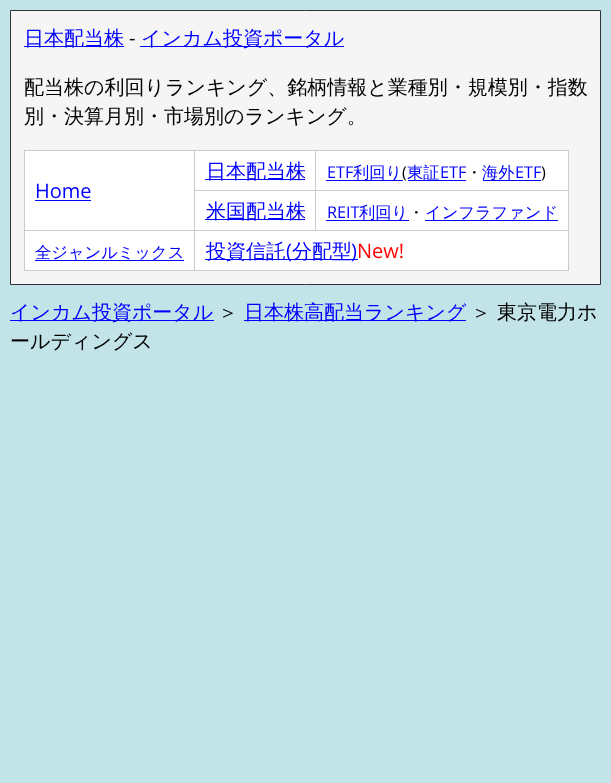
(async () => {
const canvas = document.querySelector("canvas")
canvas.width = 611
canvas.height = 783
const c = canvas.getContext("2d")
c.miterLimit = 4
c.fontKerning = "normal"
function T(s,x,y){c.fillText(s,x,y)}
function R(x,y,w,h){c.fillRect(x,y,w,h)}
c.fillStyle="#c2e3e8"
R(0,0,611,783)
c.fillStyle="#f5f5f5"
c.beginPath()
c.rect(10.5,10.5,590,274)
c.fill()
c.strokeStyle="#333"
c.stroke()
c.fillStyle="#00f"
R(24,46,100,1)
c.font="500 20px WenQuanYi Zen Hei"
T("日本配当株",24,45)
c.font="20px Open Sans"
c.fillStyle="#000"
T("-",129,45)
c.fillStyle="#00f"
R(140,46,204,1)
c.font="500 20px WenQuanYi Zen Hei"
T("インカム投資ポータル",141,45)
c.fillStyle="#000"
T("配当株の利回りランキング、銘柄情報と業種別・規模別・指数",24,94)
T("別・決算月別・市場別のランキング。",24,123)
c.fillStyle="#fff"
R(195,151,120,39)
c.fillStyle="#ccc"
R(315,150,254,1)
R(315,190,254,1)
R(194,230,375,1)
R(315,190,1,41)
R(194,190,122,1)
R(315,150,1,41)
R(194,150,122,1)
R(568,230,1,41)
R(194,270,375,1)
R(194,230,1,41)
R(24,230,171,1)
R(194,190,1,41)
R(194,150,1,41)
c.fillStyle="#00f"
R(205,179,100,1)
T("日本配当株",206,178)
c.fillStyle="#fff"
R(316,151,252,39)
c.fillStyle="#ccc"
R(568,190,1,41)
R(568,150,1,41)
c.font="16.25px Open Sans"
c.fillStyle="#00f"
T("ETF",327,178)
R(326,180,77,1)
c.font="500 16.25px WenQuanYi Zen Hei"
T("利回り",353,178)
c.font="16.25px Open Sans"
c.fillStyle="#000"
T("(",402,178)
c.fillStyle="#00f"
R(408,180,58,1)
c.font="500 16.25px WenQuanYi Zen Hei"
T("東証",407,178)
c.font="16.25px Open Sans"
T("ETF",440,178)
c.font="500 16.25px WenQuanYi Zen Hei"
c.fillStyle="#000"
T("・",466,178)
c.fillStyle="#00f"
R(483,180,58,1)
T("海外",482,178)
c.font="16.25px Open Sans"
T("ETF",515,178)
c.fillStyle="#000"
T(")",541,178)
c.fillStyle="#fff"
R(25,151,169,79)
c.fillStyle="#ccc"
R(24,150,171,1)
R(24,270,171,1)
R(24,230,1,41)
R(24,150,1,81)
c.font="20px Open Sans"
c.fillStyle="#00f"
T("Home",35,198)
R(35,200,56,1)
c.fillStyle="#fff"
R(195,191,120,39)
c.fillStyle="#00f"
R(205,219,100,1)
c.font="500 20px WenQuanYi Zen Hei"
T("米国配当株",206,218)
c.fillStyle="#fff"
R(316,191,252,39)
c.font="16.25px Open Sans"
c.fillStyle="#00f"
T("REIT",327,218)
R(326,220,83,1)
c.font="500 16.25px WenQuanYi Zen Hei"
T("利回り",359,218)
c.fillStyle="#000"
T("・",408,218)
c.fillStyle="#00f"
R(425,220,133,1)
T("インフラファンド",425,218)
c.fillStyle="#fff"
R(25,231,169,39)
c.fillStyle="#00f"
R(35,260,149,1)
T("全ジャンルミックス",35,258)
c.fillStyle="#fff"
R(195,231,373,39)
c.fillStyle="#00f"
R(205,259,153,1)
c.font="500 20px WenQuanYi Zen Hei"
T("投資信託 分配型",206,258)
c.font="20px Open Sans"
T("(",286,258)
T(")",351,258)
c.fillStyle="#f00"
T("New!",357,258)
c.fillStyle="#00f"
R(10,320,204,1)
c.font="500 20px WenQuanYi Zen Hei"
T("インカム投資ポータル",10,319)
c.fillStyle="#000"
T("＞",218,319)
c.fillStyle="#00f"
R(244,320,222,1)
T("日本株高配当ランキング",244,319)
c.fillStyle="#000"
T("＞ 東京電力ホ",471,319)
T("ールディングス",10,348)
})()
